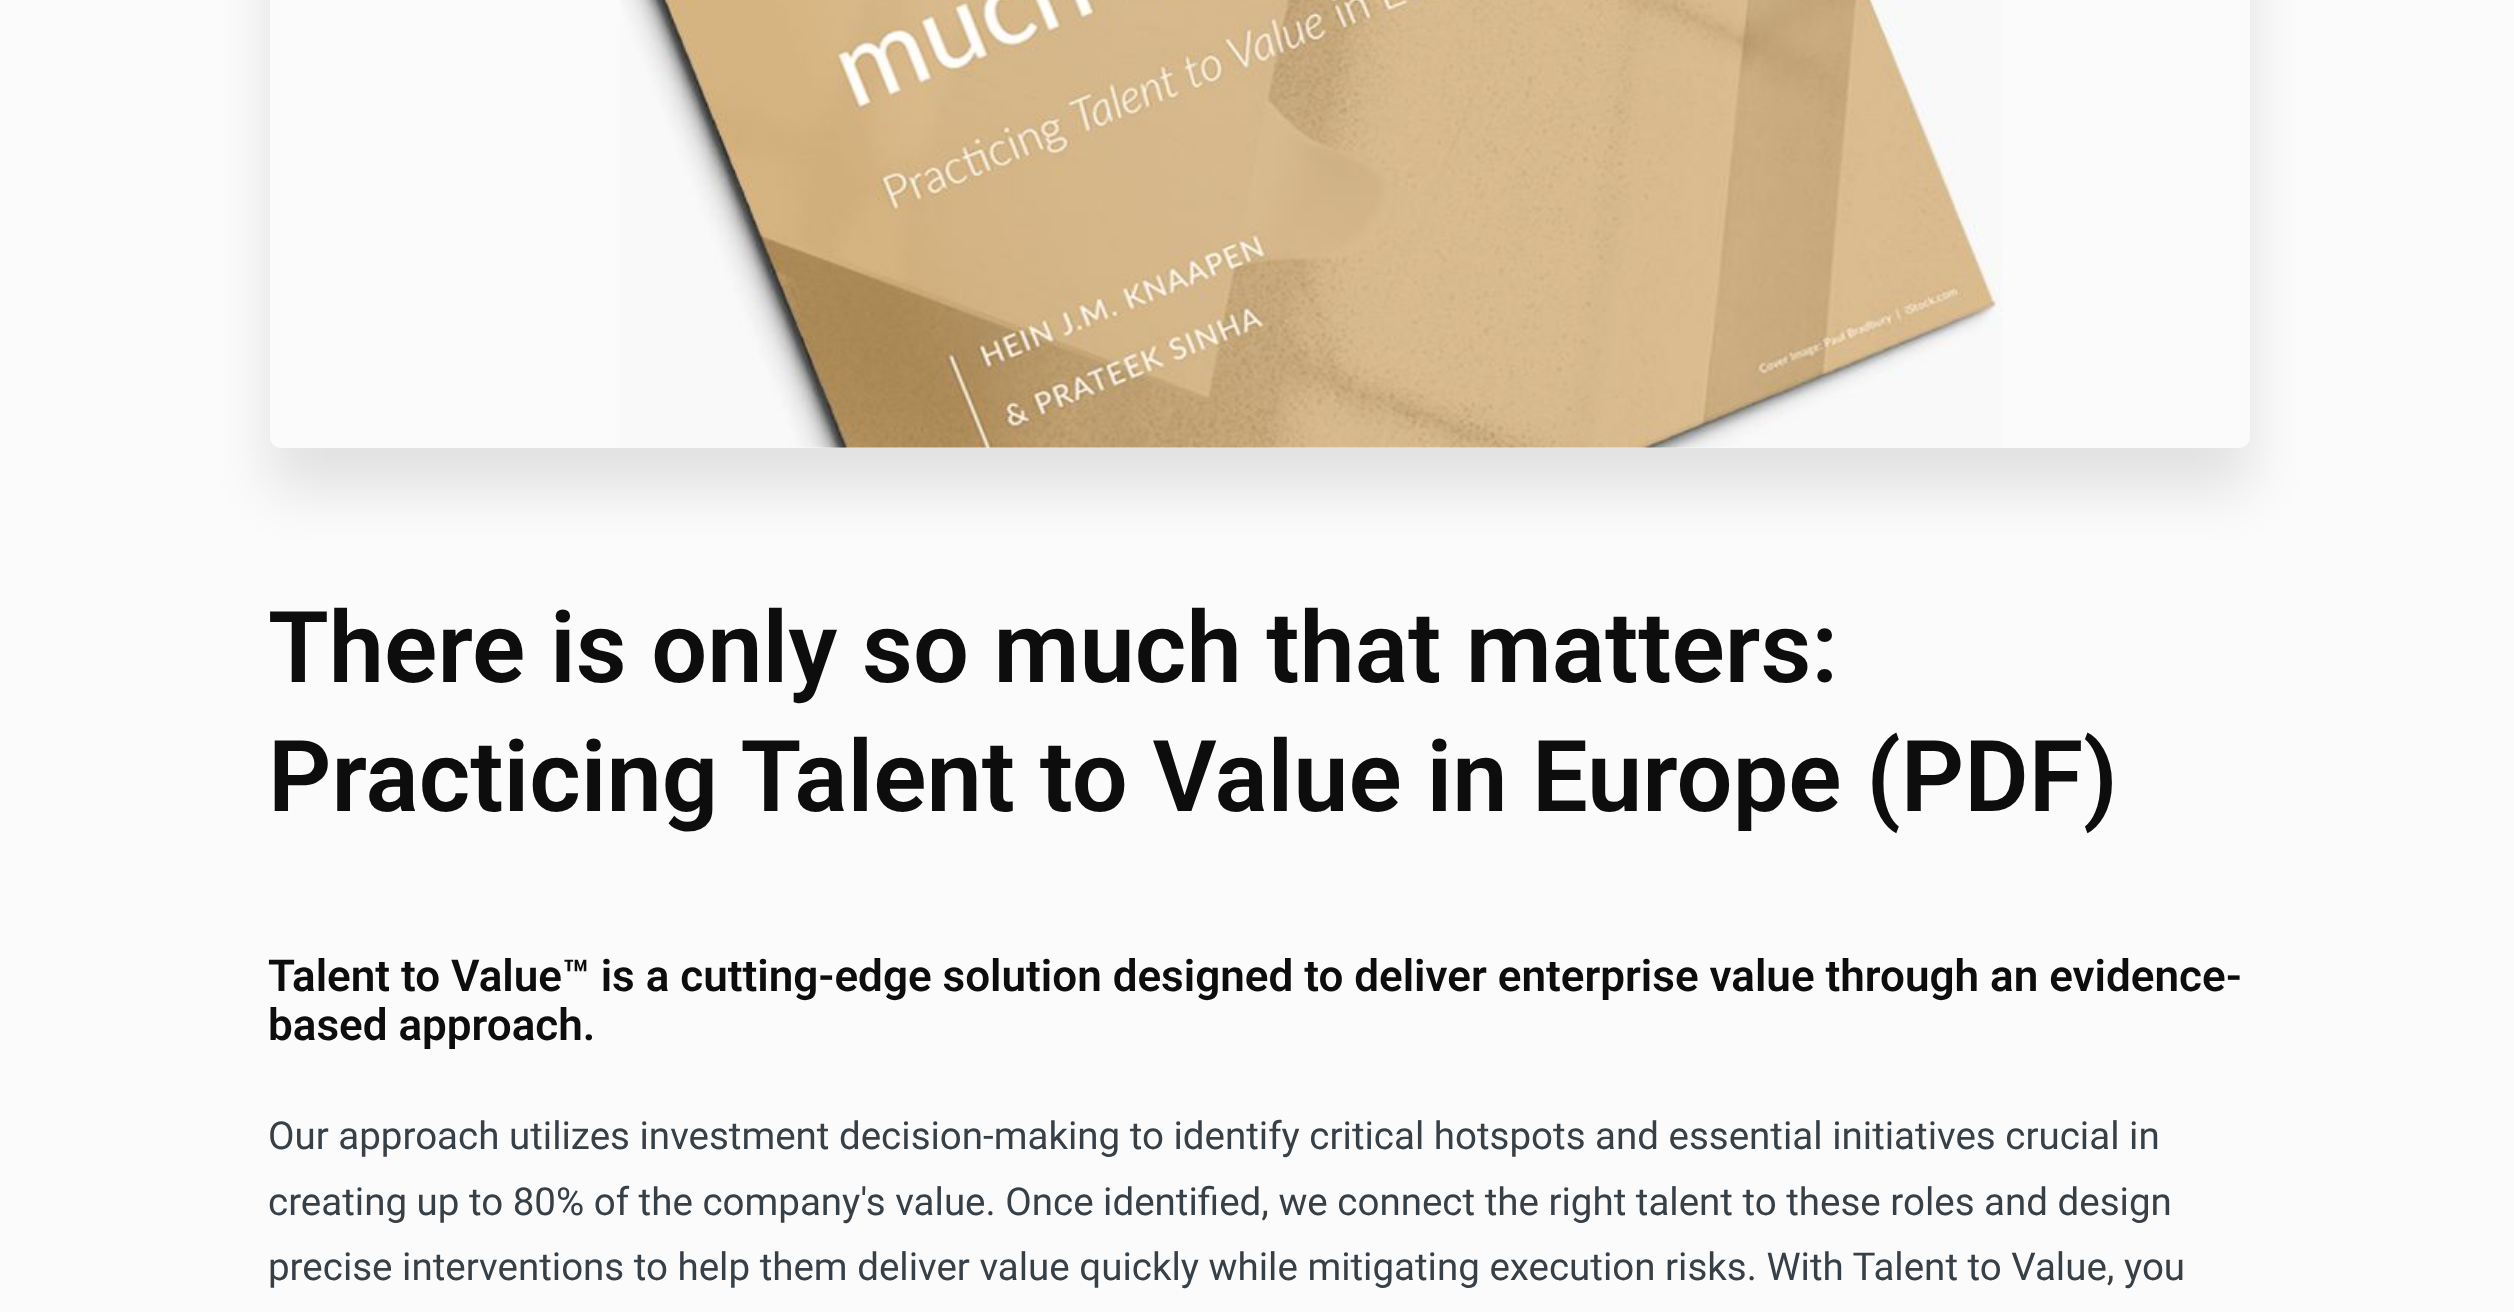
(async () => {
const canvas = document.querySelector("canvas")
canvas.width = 2514
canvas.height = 1312
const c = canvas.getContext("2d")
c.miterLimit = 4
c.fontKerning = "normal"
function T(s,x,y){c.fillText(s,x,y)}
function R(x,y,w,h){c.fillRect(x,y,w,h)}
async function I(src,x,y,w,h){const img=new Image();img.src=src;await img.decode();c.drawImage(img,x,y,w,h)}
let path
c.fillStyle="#fbfbfb"
R(0,0,2514,1312)
c.save()
path = new Path2D("M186 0h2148v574h-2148zm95-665h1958c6 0 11 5 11 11v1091c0 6-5 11-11 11h-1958c-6 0-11-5-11-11v-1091c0-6 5-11 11-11z")
c.clip(path,"evenodd")
c.fillStyle="#0000001a"
c.filter="blur(27.5px)"
c.beginPath()
c.roundRect(270,-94,1980,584,11)
c.fill()
c.filter="none"
c.restore()
await I("1.png",620,0,1383,448)
c.font="600 99px Roboto"
c.fillStyle="#0d0d0d"
T("There is only so much that matters:",268,682)
T("Practicing Talent to Value in Europe (PDF)",268,811)
c.font="600 44px Roboto"
T("Talent to Value™ is a cutting-edge solution designed to deliver enterprise value through an evidence-",268,991)
T("based approach.",268,1040)
c.font="38.5px Roboto"
c.fillStyle="#373f47"
T("Our approach utilizes investment decision-making to identify critical hotspots and essential initiatives crucial in",268,1149)
T("creating up to 80% of the company's value. Once identified, we connect the right talent to these roles and design",268,1215)
T("precise interventions to help them deliver value quickly while mitigating execution risks. With Talent to Value, you",268,1280)
})()
